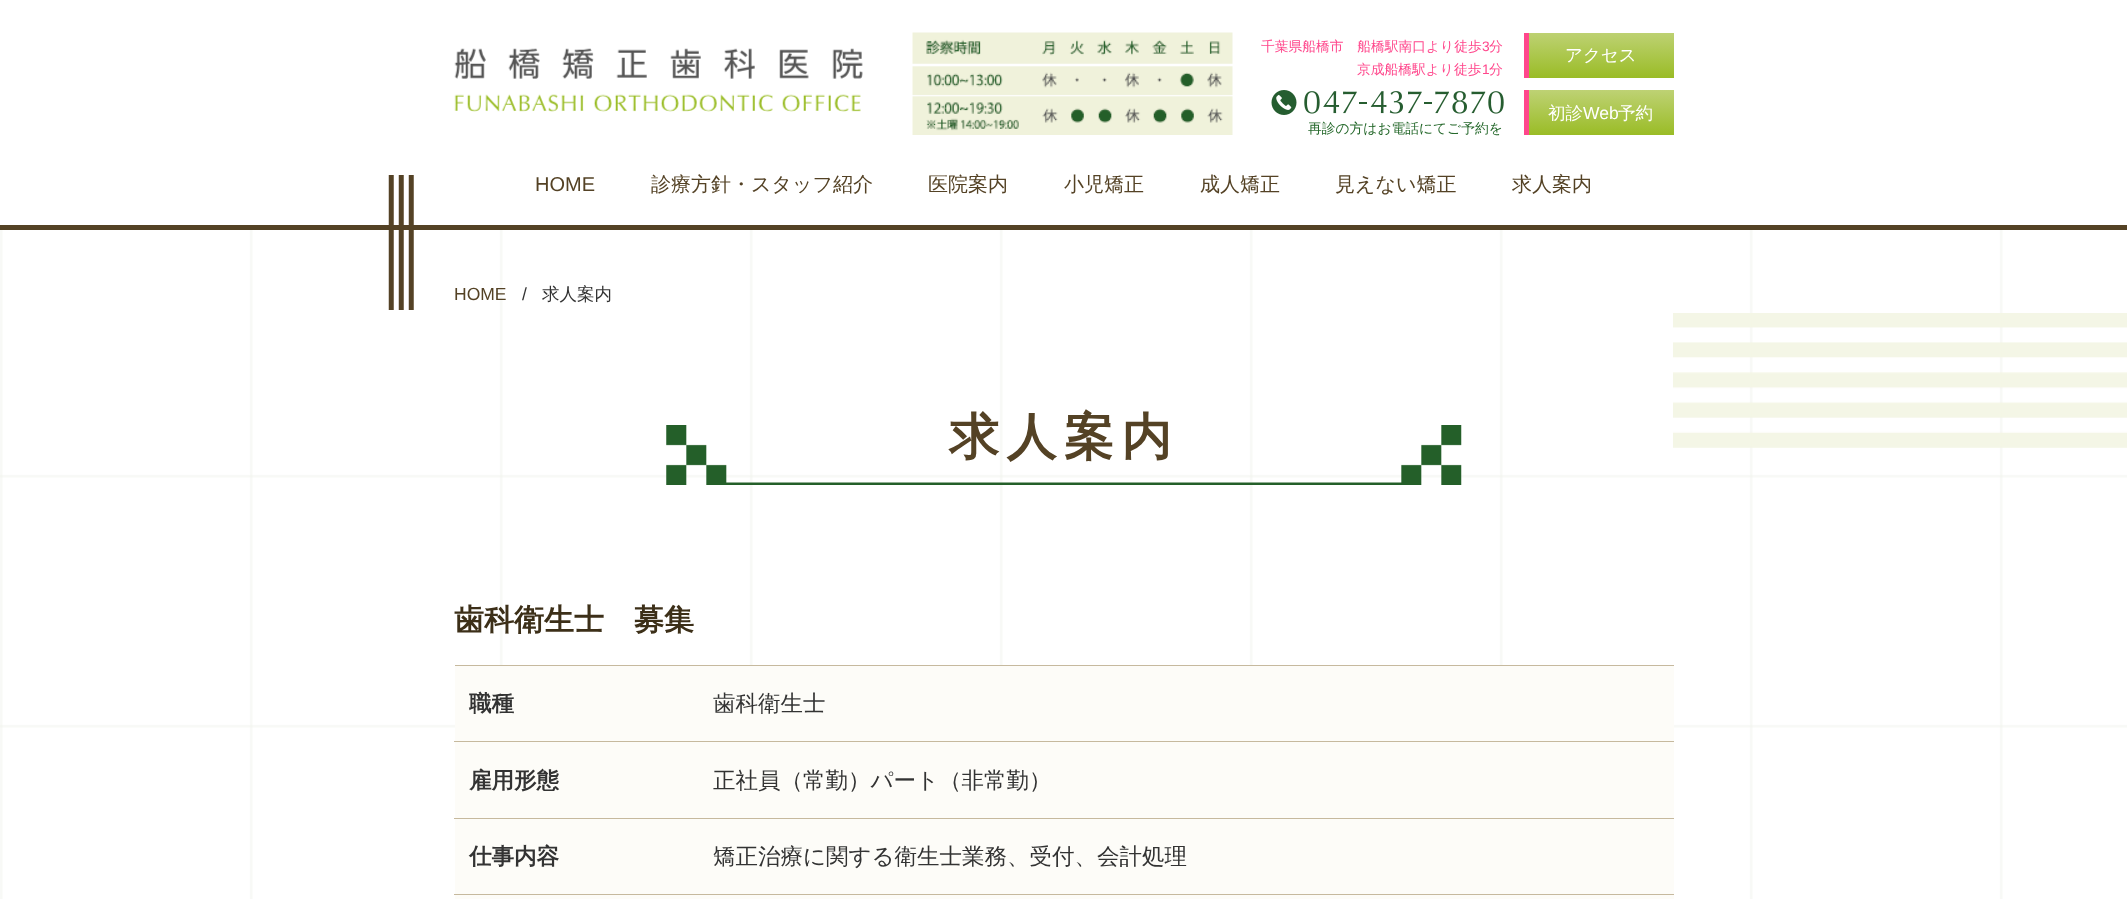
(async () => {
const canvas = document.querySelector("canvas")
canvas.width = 2127
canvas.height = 899
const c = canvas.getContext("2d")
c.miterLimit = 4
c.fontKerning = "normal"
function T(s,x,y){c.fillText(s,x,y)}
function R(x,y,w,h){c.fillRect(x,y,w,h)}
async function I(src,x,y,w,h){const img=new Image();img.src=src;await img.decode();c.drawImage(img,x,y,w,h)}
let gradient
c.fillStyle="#fff"
R(0,0,2127,899)
await I("1.png",454,48,409,64)
await I("2.png",912,32,321,103)
c.font="500 13.75px WenQuanYi Zen Hei"
c.fillStyle="#ff478c"
T("千葉県船橋市　船橋駅南口より徒歩",1261,51)
c.font="13.75px Liberation Sans"
T("3",1482,51)
c.font="500 13.75px WenQuanYi Zen Hei"
T("分",1489,51)
T("京成船橋駅より徒歩",1357,74)
c.font="13.75px Liberation Sans"
T("1",1482,74)
c.font="500 13.75px WenQuanYi Zen Hei"
T("分",1489,74)
gradient = c.createLinearGradient(1601,32,1601,78)
gradient.addColorStop(0,"#bed274")
gradient.addColorStop(1,"#9abc26")
c.fillStyle = gradient
R(1529,33,145,45)
c.fillStyle="#ff478c"
R(1524,33,5,45)
c.font="500 17.5px WenQuanYi Zen Hei"
c.fillStyle="#fff"
T("アクセス",1565,61)
gradient = c.createLinearGradient(1601,90,1601,135)
gradient.addColorStop(0,"#bed274")
gradient.addColorStop(1,"#9abc26")
c.fillStyle = gradient
R(1529,90,145,45)
c.fillStyle="#ff478c"
R(1524,90,5,45)
c.fillStyle="#fff"
T("初診",1548,119)
c.font="17.5px Liberation Sans"
T("Web",1583,119)
c.font="500 17.5px WenQuanYi Zen Hei"
T("予約",1618,119)
await I("3.png",1271,90,233,25)
c.font="500 13.75px WenQuanYi Zen Hei"
c.fillStyle="#26692c"
T("再診の方はお電話にてご予約を",1308,133)
c.font="20px Liberation Sans"
c.fillStyle="#544225"
T("HOME",535,191)
c.font="500 20px WenQuanYi Zen Hei"
T("診療方針・スタッフ紹介",651,191)
T("医院案内",928,191)
T("小児矯正",1064,191)
T("成人矯正",1200,191)
T("見えない矯正",1335,191)
T("求人案内",1512,191)
await I("6.png",0,230,2127,669)
R(0,225,2127,5)
await I("4.png",388,175,26,135)
await I("5.png",1673,313,454,135)
c.font="17.5px Liberation Sans"
T("HOME",454,300)
c.fillStyle="#333"
T("/",522,300)
c.font="500 17.5px WenQuanYi Zen Hei"
T("求人案内",542,300)
await I("7.png",666,425,796,60)
c.letterSpacing="7.5px"
c.font="bold 50px WenQuanYi Zen Hei"
c.fillStyle="#544225"
T("求人案内",949,454)
c.letterSpacing="0px"
c.font="bold 30px WenQuanYi Zen Hei"
c.fillStyle="#3c2f18"
T("歯科衛生士　募集",454,630)
c.fillStyle="#c6b99e"
R(455,665,1219,1)
c.fillStyle="#fdfcf8"
R(455,666,1219,77)
c.fillStyle="#c6b99e"
R(454,741,1220,1)
c.font="bold 22.5px WenQuanYi Zen Hei"
c.fillStyle="#333"
T("職種",469,711)
c.font="500 22.5px WenQuanYi Zen Hei"
T("歯科衛生士",713,711)
c.fillStyle="#c6b99e"
R(454,818,1220,1)
c.fillStyle="#fdfcf8"
R(455,743,1219,75)
c.font="bold 22.5px WenQuanYi Zen Hei"
c.fillStyle="#333"
T("雇用形態",469,788)
c.font="500 22.5px WenQuanYi Zen Hei"
T("正社員（常勤）パート（非常勤）",713,788)
c.fillStyle="#c6b99e"
R(454,894,1220,1)
c.fillStyle="#fdfcf8"
R(455,819,1219,75)
c.font="bold 22.5px WenQuanYi Zen Hei"
c.fillStyle="#333"
T("仕事内容",469,864)
c.font="500 22.5px WenQuanYi Zen Hei"
T("矯正治療に関する衛生士業務、受付、会計処理",713,864)
c.fillStyle="#fdfcf8"
R(455,895,1219,4)
})()
